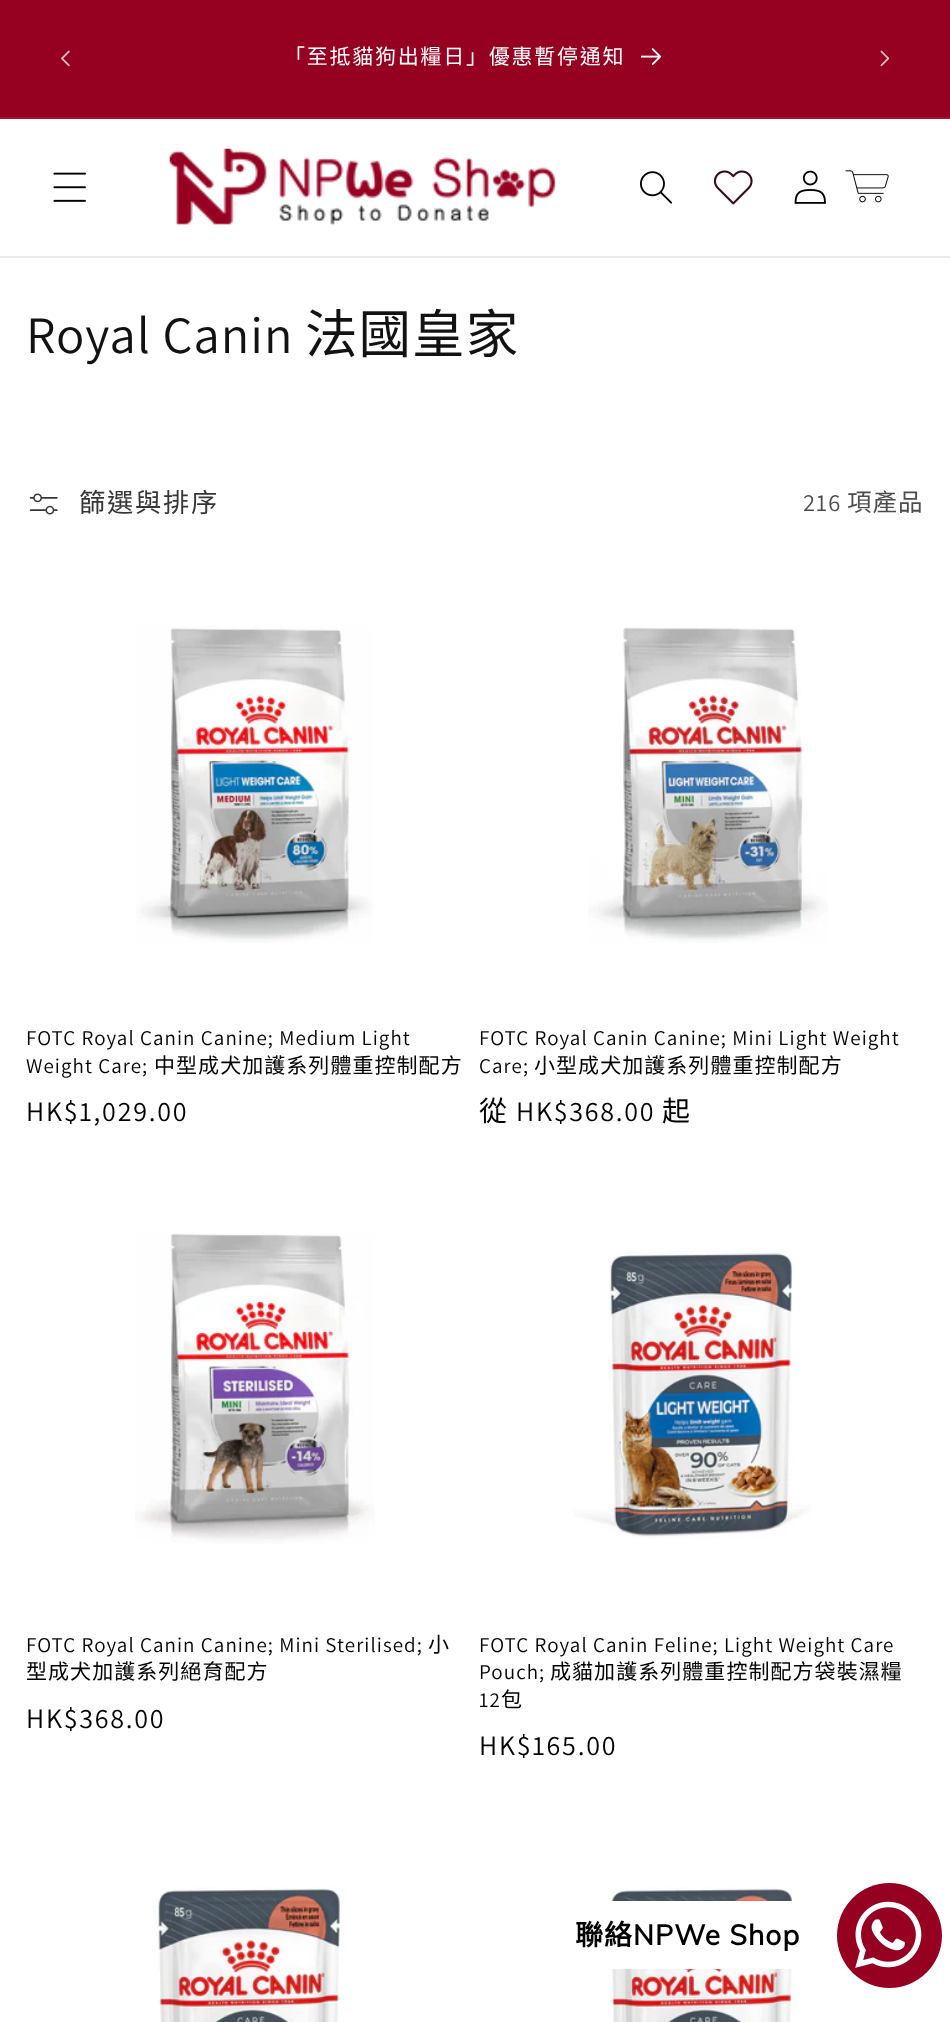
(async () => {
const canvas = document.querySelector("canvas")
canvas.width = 950
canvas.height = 2022
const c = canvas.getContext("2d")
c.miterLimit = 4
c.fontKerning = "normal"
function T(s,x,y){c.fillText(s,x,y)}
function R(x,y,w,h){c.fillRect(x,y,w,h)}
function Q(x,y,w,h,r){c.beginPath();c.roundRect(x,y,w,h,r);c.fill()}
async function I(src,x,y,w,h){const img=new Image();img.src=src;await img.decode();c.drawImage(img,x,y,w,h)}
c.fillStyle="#fff"
R(0,0,950,2022)
c.fillStyle="#960021"
R(0,0,950,117)
c.fillStyle="#9e1433"
R(0,117,950,2)
await I("1.png",61,50,9,17)
c.letterSpacing="1.75px"
c.font="21px Noto Sans CJK TC"
c.fillStyle="#fff"
T("「至抵貓狗出糧日」優惠暫停通知",284,64)
await I("2.png",641,48,21,17)
await I("3.png",880,50,10,17)
c.fillStyle="#ebebeb"
R(0,256,950,2)
await I("4.png",53,172,33,30)
await I("5.png",169,148,387,77)
await I("6.png",640,171,32,33)
await I("7.png",713,170,40,35)
await I("8.png",794,170,32,34)
await I("9.png",845,170,44,33)
c.letterSpacing="1.05px"
c.font="52.5px Assistant"
c.fillStyle="#121212"
T("Royal Canin",26,353)
c.font="52.5px Noto Sans CJK TC"
T("法國皇家",305,353)
await I("10.png",29,493,29,22)
c.letterSpacing="1.75px"
c.font="26.25px Noto Sans CJK TC"
c.fillStyle="#363636"
T("篩選與排序",79,512)
c.letterSpacing="1.05px"
c.font="24.5px Assistant"
c.fillStyle="#4d4d4d"
T("216",803,511)
c.font="24.5px Noto Sans CJK TC"
T("項產品",847,511)
await I("11.png",136,626,237,317)
c.font="21px Assistant"
c.fillStyle="#000"
T("FOTC Royal Canin Canine; Medium Light",26,1045)
T("Weight Care;",26,1073)
c.font="21px Noto Sans CJK TC"
T("中型成犬加護系列體重控制配方",154,1073)
c.letterSpacing="1.75px"
c.font="28px Assistant"
T("HK$1,029.00",26,1121)
await I("12.png",588,627,240,316)
c.letterSpacing="1.05px"
c.font="21px Assistant"
T("FOTC Royal Canin Canine; Mini Light Weight",479,1045)
T("Care;",479,1073)
c.font="21px Noto Sans CJK TC"
T("小型成犬加護系列體重控制配方",534,1073)
c.letterSpacing="1.75px"
c.font="28px Noto Sans CJK TC"
T("從",479,1121)
c.font="28px Assistant"
T("HK$368.00",516,1121)
c.font="28px Noto Sans CJK TC"
T("起",662,1121)
await I("13.png",135,1233,240,311)
c.letterSpacing="1.05px"
c.font="21px Assistant"
T("FOTC Royal Canin Canine; Mini Sterilised;",26,1652)
c.font="21px Noto Sans CJK TC"
T("小",428,1652)
T("型成犬加護系列絕育配方",26,1679)
c.letterSpacing="1.75px"
c.font="28px Assistant"
T("HK$368.00",26,1728)
await I("14.png",574,1251,237,288)
c.letterSpacing="1.05px"
c.font="21px Assistant"
T("FOTC Royal Canin Feline; Light Weight Care",479,1652)
T("Pouch;",479,1679)
c.font="21px Noto Sans CJK TC"
T("成貓加護系列體重控制配方袋裝濕糧",550,1679)
c.font="21px Assistant"
T("12",479,1707)
c.font="21px Noto Sans CJK TC"
T("包",501,1707)
c.letterSpacing="1.75px"
c.font="28px Assistant"
T("HK$165.00",479,1755)
await I("15.png",155,1887,189,135)
await I("16.png",608,1887,189,135)
c.fillStyle="#960021"
c.beginPath()
c.arc(889.5,1935.5,52.5,0,7)
c.fill()
c.fillStyle="#fff"
Q(558,1901,261,68,14)
c.letterSpacing="1.05px"
c.font="bold 28px Noto Sans CJK TC"
c.fillStyle="#000"
T("聯絡",575,1945)
c.font="bold 28px Muli"
T("NPWe Shop",633,1945)
await I("17.png",855,1901,67,67)
})()
